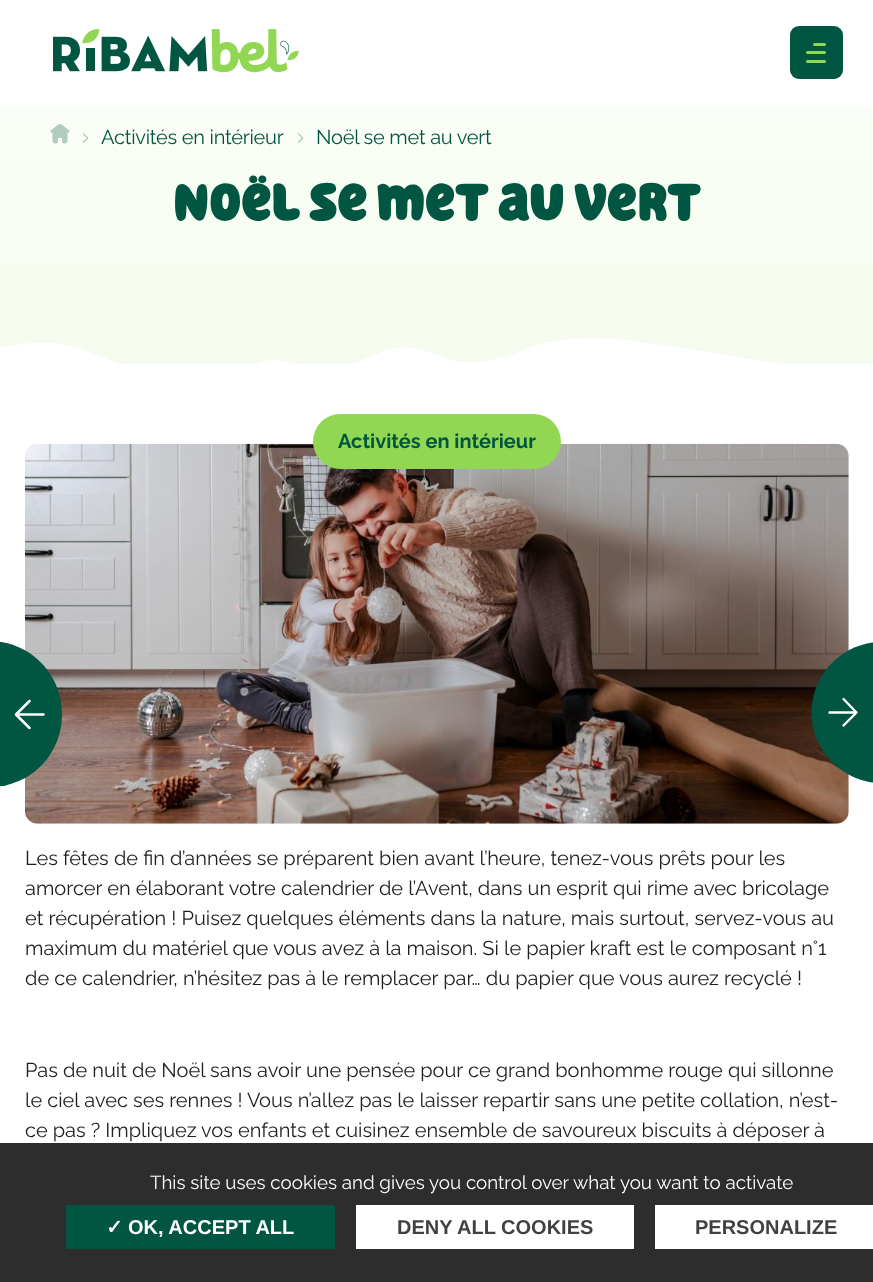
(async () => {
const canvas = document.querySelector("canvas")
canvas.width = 873
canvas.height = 1282
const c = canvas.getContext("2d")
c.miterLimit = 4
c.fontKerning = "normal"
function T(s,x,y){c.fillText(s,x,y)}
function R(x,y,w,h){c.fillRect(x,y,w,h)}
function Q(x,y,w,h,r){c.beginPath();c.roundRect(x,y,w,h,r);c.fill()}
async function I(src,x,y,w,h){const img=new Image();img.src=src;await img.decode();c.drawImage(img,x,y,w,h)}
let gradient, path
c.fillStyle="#fff"
R(0,0,873,1282)
await I("1.png",53,29,246,44)
c.fillStyle="#005640"
Q(790,26,53,53,9)
c.fillStyle="#91d754"
Q(813,43,13,3,1.5)
Q(806,51,20,3,1.5)
Q(806,60,20,3,1.5)
gradient = c.createLinearGradient(437,0,437,364)
gradient.addColorStop(0,"#fdfffc")
gradient.addColorStop(.85,"#f5fcef")
c.fillStyle = gradient
R(0,106,873,195)
await I("2.png",50,124,20,20)
await I("3.png",83,133,6,10)
c.letterSpacing="-0.25px"
c.font="20px Raleway"
c.fillStyle="#005640"
T("Activités en intérieur",101,144)
await I("3.png",298,133,6,10)
T("Noël se met au vert",316,144)
c.letterSpacing="1.25px"
c.font="bold 52.5px 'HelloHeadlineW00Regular'"
T("Noël se met au vert",173,221)
await I("4.png",0,301,873,63)
await I("5.png",25,443,824,381)
c.fillStyle="#91d754"
Q(313,414,248,55,27.5)
c.letterSpacing="0px"
c.font="bold 20px Raleway"
c.fillStyle="#005640"
T("Activités en intérieur",338,448)
c.font="20px Raleway"
c.fillStyle="#1e1e1e"
T("Les fêtes de fin d’années se préparent bien avant l’heure, tenez-vous prêts pour les",25,865)
T("amorcer en élaborant votre calendrier de l’Avent, dans un esprit qui rime avec bricolage",25,895)
T("et récupération ! Puisez quelques éléments dans la nature, mais surtout, servez-vous au",25,925)
T("maximum du matériel que vous avez à la maison. Si le papier kraft est le composant n°1",25,955)
T("de ce calendrier, n’hésitez pas à le remplacer par… du papier que vous aurez recyclé !",25,985)
T("Pas de nuit de Noël sans avoir une pensée pour ce grand bonhomme rouge qui sillonne",25,1077)
T("le ciel avec ses rennes ! Vous n’allez pas le laisser repartir sans une petite collation, n’est-",25,1107)
T("ce pas ? Impliquez vos enfants et cuisinez ensemble de savoureux biscuits à déposer à",25,1137)
c.fillStyle="#005640"
path = new Path2D("M-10 787c-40 0-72-32-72-73c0-40 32-73 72-73c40 0 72 33 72 73c0 41-32 73-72 73z")
c.fill(path)
path = new Path2D("M29.5 728l-13.5-13.5l13.5-13.5m-12 13.5h26")
c.strokeStyle="#fff"
c.lineWidth=2.5
c.lineCap="round"
c.lineJoin="round"
c.stroke(path)
c.beginPath()
c.arc(882,712.5,70.5,0,7)
c.fill()
path = new Path2D("M843.5 699l13 13.5l-13 13m11.5-13h-25.5")
c.lineWidth=2.4
c.stroke(path)
c.fillStyle="#2d2d2d"
R(0,1143,873,139)
c.font="18.75px Raleway"
c.fillStyle="#fff"
T("This site uses cookies and gives you control over what you want to activate",150,1189)
c.fillStyle="#005640"
R(66,1205,269,44)
c.font="bold 20px DejaVu Sans"
c.fillStyle="#fff"
T("✓",106,1234)
c.font="bold 20px Liberation Sans"
T("OK, ACCEPT ALL",128,1234)
R(356,1205,278,44)
c.fillStyle="#414141"
T("DENY ALL COOKIES",397,1234)
c.fillStyle="#fff"
R(655,1205,218,44)
c.fillStyle="#414141"
T("PERSONALIZE",695,1234)
})()
